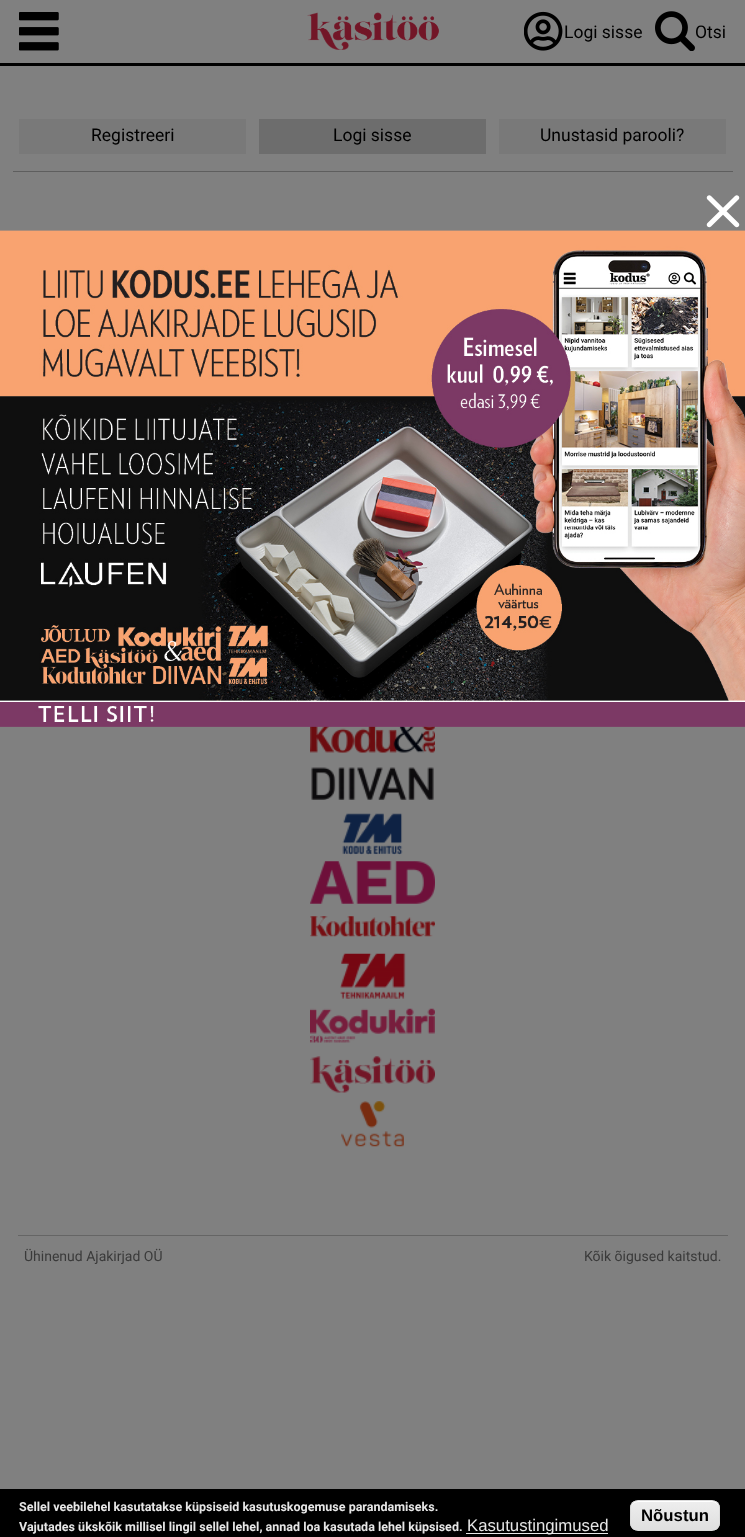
(async () => {
const canvas = document.querySelector("canvas")
canvas.width = 745
canvas.height = 1537
const c = canvas.getContext("2d")
c.miterLimit = 4
c.fontKerning = "normal"
function T(s,x,y){c.fillText(s,x,y)}
function R(x,y,w,h){c.fillRect(x,y,w,h)}
async function I(src,x,y,w,h){const img=new Image();img.src=src;await img.decode();c.drawImage(img,x,y,w,h)}
let gradient, path
c.fillStyle="#808080"
R(0,0,745,1537)
await I("1.png",307,12,132,38)
c.fillStyle="#000"
R(0,63,745,3)
await I("2.png",19,12,40,39)
await I("3.png",524,11,39,40)
c.font="17.5px Roboto"
T("Logi sisse",564,38)
await I("4.png",655,11,40,40)
T("Otsi",695,38)
c.fillStyle="#5e5e5e"
R(13,171,720,1)
c.fillStyle="#797979"
R(19,119,227,35)
c.fillStyle="#000"
T("Registreeri",91,141)
c.fillStyle="#6d6d6d"
R(259,119,227,35)
c.fillStyle="#000"
T("Logi sisse",333,141)
c.fillStyle="#797979"
R(499,119,227,35)
c.fillStyle="#000"
T("Unustasid parooli?",540,141)
c.fillStyle="#656565"
R(18,1235,710,1)
await I("5.png",310,726,125,27)
await I("6.png",311,767,123,33)
await I("7.png",342,813,61,42)
await I("8.png",310,861,125,43)
await I("9.png",310,916,125,21)
await I("10.png",340,953,66,46)
await I("11.png",310,1008,125,35)
await I("12.png",310,1056,125,37)
await I("13.png",341,1101,63,46)
c.font="14px Roboto"
c.fillStyle="#3a3a3a"
T("Ühinenud Ajakirjad OÜ",24,1261)
T("Kõik õigused kaitstud.",584,1261)
c.fillStyle="#fff"
path = new Path2D("M711 196l27.5 27c1 1 1 2.5 0 3.5c-1 1-2.5 1-3.5 0l-27.5-27c-1-1-1-2.5 0-3.5c1-1 2.5-1 3.5 0z")
c.fill(path)
path = new Path2D("M707.5 223l27.5-27c1-1 2.5-1 3.5 0c1 1 1 2.5 0 3.5l-27.5 27c-1 1-2.5 1-3.5 0c-1-1-1-2.5 0-3.5z")
c.fill(path)
await I("14.png",0,230,745,497)
c.fillStyle="#000"
R(0,1489,745,48)
c.font="bold 12.5px Roboto"
c.fillStyle="#e6e6e6"
T("Sellel veebilehel kasutatakse küpsiseid kasutuskogemuse parandamiseks.",19,1511)
T("Vajutades ükskõik millisel lingil sellel lehel, annad loa kasutada lehel küpsised.",19,1531)
R(466,1533,142,1)
c.font="16.75px Liberation Sans"
T("Kasutustingimused",467,1531)
c.save()
c.beginPath()
c.roundRect(630,1500,90,31,8)
c.clip()
gradient = c.createLinearGradient(675,1501,675,1530)
gradient.addColorStop(.05,"#ededed")
gradient.addColorStop(1,"#dfdfdf")
c.fillStyle = gradient
R(630,1501,90,29)
c.restore()
c.fillStyle="#fff"
path = new Path2D("M638 1502h74c4 0 7 3 7 7c0-11-10-8-19-8h-50c-9 0-19-3-19 8c0-4 3-7 7-7z")
c.fill(path)
c.beginPath()
c.roundRect(630.5,1500.5,89,30,7.5)
c.strokeStyle="#dcdcdc"
c.stroke()
c.font="bold 16.75px Liberation Sans"
c.fillStyle="#000"
T("Nõustun",641,1521)
})()
